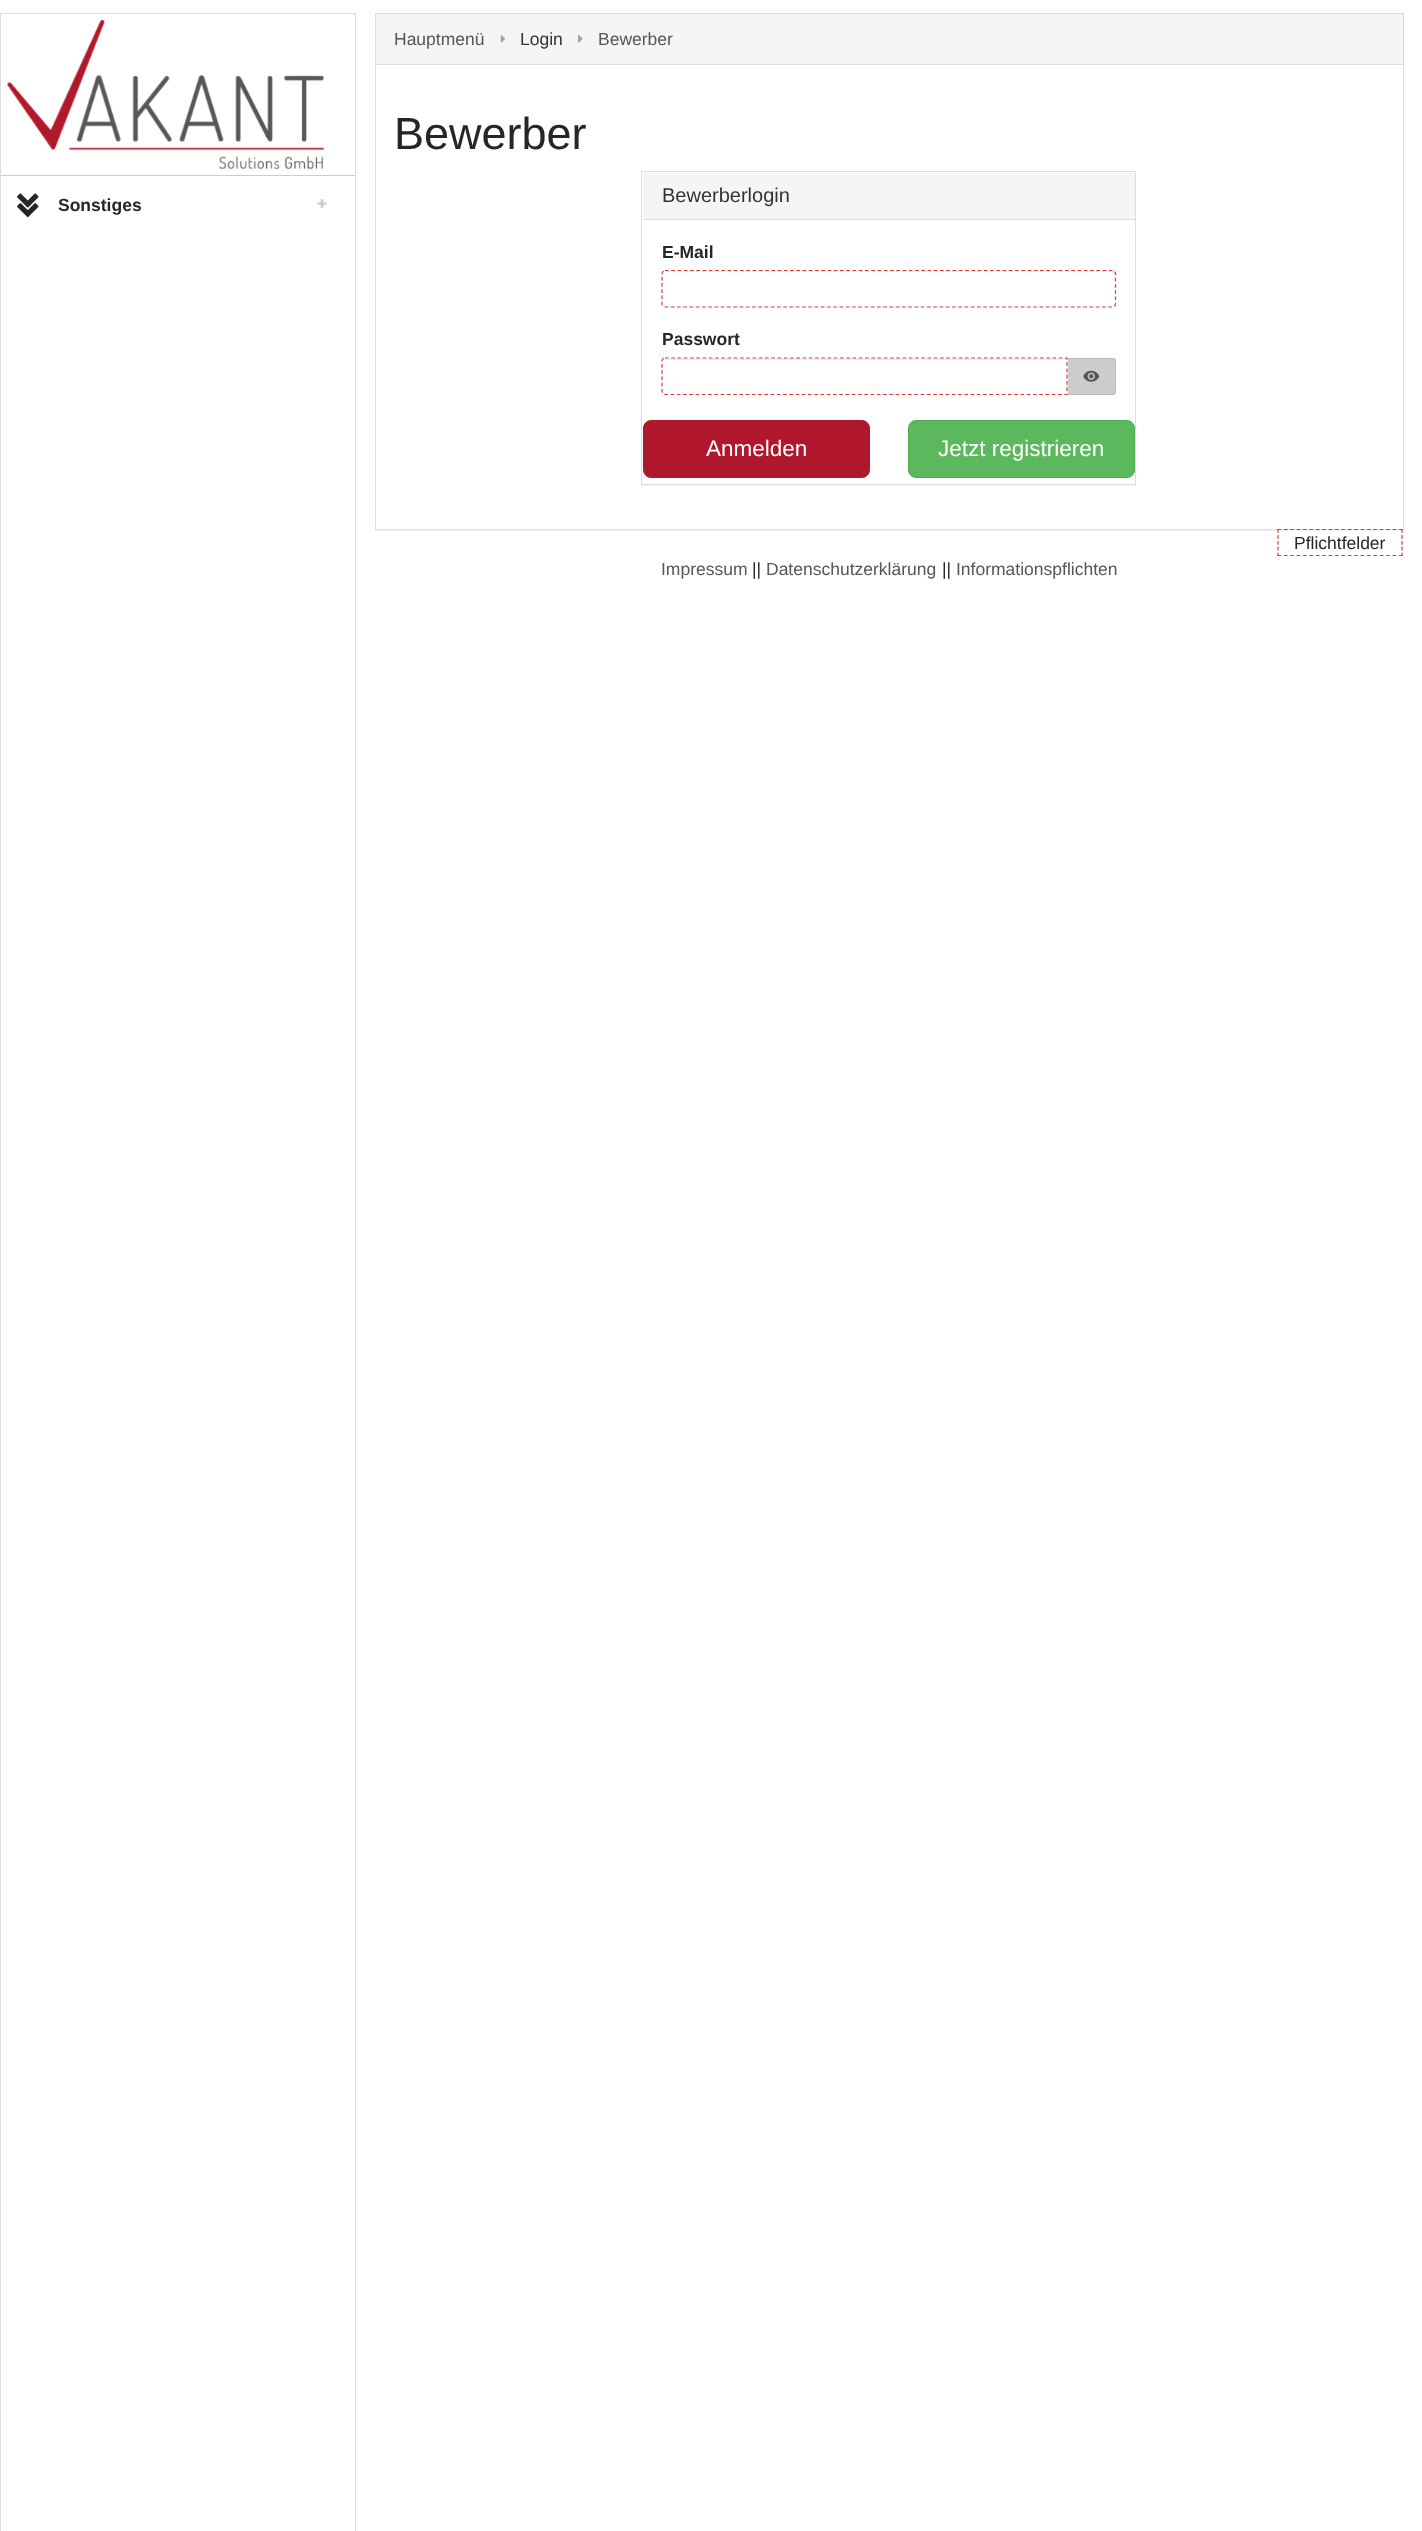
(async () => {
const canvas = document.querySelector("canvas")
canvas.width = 1422
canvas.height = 2531
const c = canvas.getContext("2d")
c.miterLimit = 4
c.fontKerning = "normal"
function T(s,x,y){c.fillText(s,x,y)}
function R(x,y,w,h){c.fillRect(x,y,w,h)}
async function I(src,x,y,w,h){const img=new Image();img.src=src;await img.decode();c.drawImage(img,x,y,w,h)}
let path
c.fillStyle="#fff"
R(0,0,1422,2531)
c.strokeStyle="#ddd"
c.strokeRect(.5,13.5,355,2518)
await I("1.png",7,19,317,151)
c.fillStyle="#ccc"
R(1,175,354,1)
await I("2.png",17,193,22,25)
c.font="bold 17.5px Liberation Sans"
c.fillStyle="#262626"
T("Sonstiges",58,211)
await I("3.png",317,199,10,9)
c.fillStyle="#0000000d"
c.filter="blur(0.5px)"
c.beginPath()
c.rect(375,14,1029,517)
c.fill()
c.filter="none"
c.fillStyle="#fff"
R(376,65,1027,464)
c.strokeRect(375.5,13.5,1028,516)
c.fillStyle="#f5f5f5"
R(376,15,1027,49)
c.fillStyle="#ddd"
R(376,64,1027,1)
c.font="17.5px Liberation Sans"
c.fillStyle="#575556"
T("Hauptmenü",394,45)
await I("4.png",500,35,5,8)
c.fillStyle="#333"
T("Login",520,45)
await I("5.png",578,35,5,8)
c.fillStyle="#575556"
T("Bewerber",598,45)
c.font="45px Liberation Sans"
c.fillStyle="#262626"
T("Bewerber",394,149)
c.fillStyle="#0000000d"
c.filter="blur(0.5px)"
c.beginPath()
c.rect(641,173,495,313)
c.fill()
c.filter="none"
c.fillStyle="#fff"
R(642,173,493,311)
c.strokeRect(641.5,171.5,494,313)
c.fillStyle="#f5f5f5"
R(643,173,492,46)
c.fillStyle="#ddd"
R(643,219,492,1)
c.font="20px Liberation Sans"
c.fillStyle="#333"
T("Bewerberlogin",662,202)
c.font="bold 17.5px Liberation Sans"
c.fillStyle="#262626"
T("E-Mail",662,258)
c.fillStyle="#ececec"
path = new Path2D("M665 272h447c2 0 3 2 3 3v-1c0-2-1-3-3-3h-446c-2 0-3 1-3 2z")
c.fill(path)
path = new Path2D("M665 270.5h447.5c1.5 0 3 1.5 3 3.5v30c0 1.5-1.5 3-3 3h-447.5c-1.5 0-3-1.5-3-3v-30c0-2 1.5-3.5 3-3.5z")
c.strokeStyle="#d43f3a"
c.lineWidth=1.2
c.setLineDash([3.75,2.5])
c.stroke(path)
c.fillStyle="#262626"
T("Passwort",662,345)
c.fillStyle="#ececec"
path = new Path2D("M665 360h401v-1h-400c-2 0-2 1-3 2z")
c.fill(path)
path = new Path2D("M665 358h402v36.5h-402c-1.5 0-3-1.5-3-3.5v-30c0-1.5 1.5-3 3-3z")
c.stroke(path)
c.fillStyle="#ccc"
c.beginPath()
c.roundRect(1068,358,48,37,[0,4,4,0])
c.fill()
c.fillStyle="#b8b8b8"
path = new Path2D("M1068 358h44c3 0 4 1 4 3v30c0 2-1 4-4 4h-44zm0 1h44c2 0 3 1 3 2v30c0 2-1 3-3 3h-44z")
c.fill(path,"evenodd")
await I("6.png",1083,370,17,12)
c.fillStyle="#b0172c"
c.beginPath()
c.roundRect(643.5,420.5,226,57,7.5)
c.fill()
c.strokeStyle="#b0172c"
c.lineWidth=1
c.setLineDash([])
c.stroke()
c.font="22.5px Liberation Sans"
c.fillStyle="#fff"
T("Anmelden",706,456)
c.fillStyle="#5cb85c"
c.beginPath()
c.roundRect(908.5,420.5,226,57,7.5)
c.fill()
c.strokeStyle="#4cae4c"
c.stroke()
c.fillStyle="#fff"
T("Jetzt registrieren",938,456)
path = new Path2D("M1277.5 529.5h125")
c.strokeStyle="#d43f3a"
c.lineWidth=1.2
c.setLineDash([3.75,2.64])
c.stroke(path)
path = new Path2D("M1402 529v27")
c.setLineDash([3.75,2.19])
c.stroke(path)
path = new Path2D("M1277.5 555.5h125")
c.setLineDash([3.75,2.64])
c.stroke(path)
path = new Path2D("M1278 529v27")
c.setLineDash([3.75,2.19])
c.stroke(path)
c.font="17.5px Liberation Sans"
c.fillStyle="#262626"
T("Pflichtfelder",1294,549)
c.fillStyle="#575556"
T("Impressum",661,575)
c.fillStyle="#262626"
T("||",752,575)
c.fillStyle="#575556"
T("Datenschutzerklärung",766,575)
c.fillStyle="#262626"
T("||",942,575)
c.fillStyle="#575556"
T("Informationspflichten",956,575)
})()
